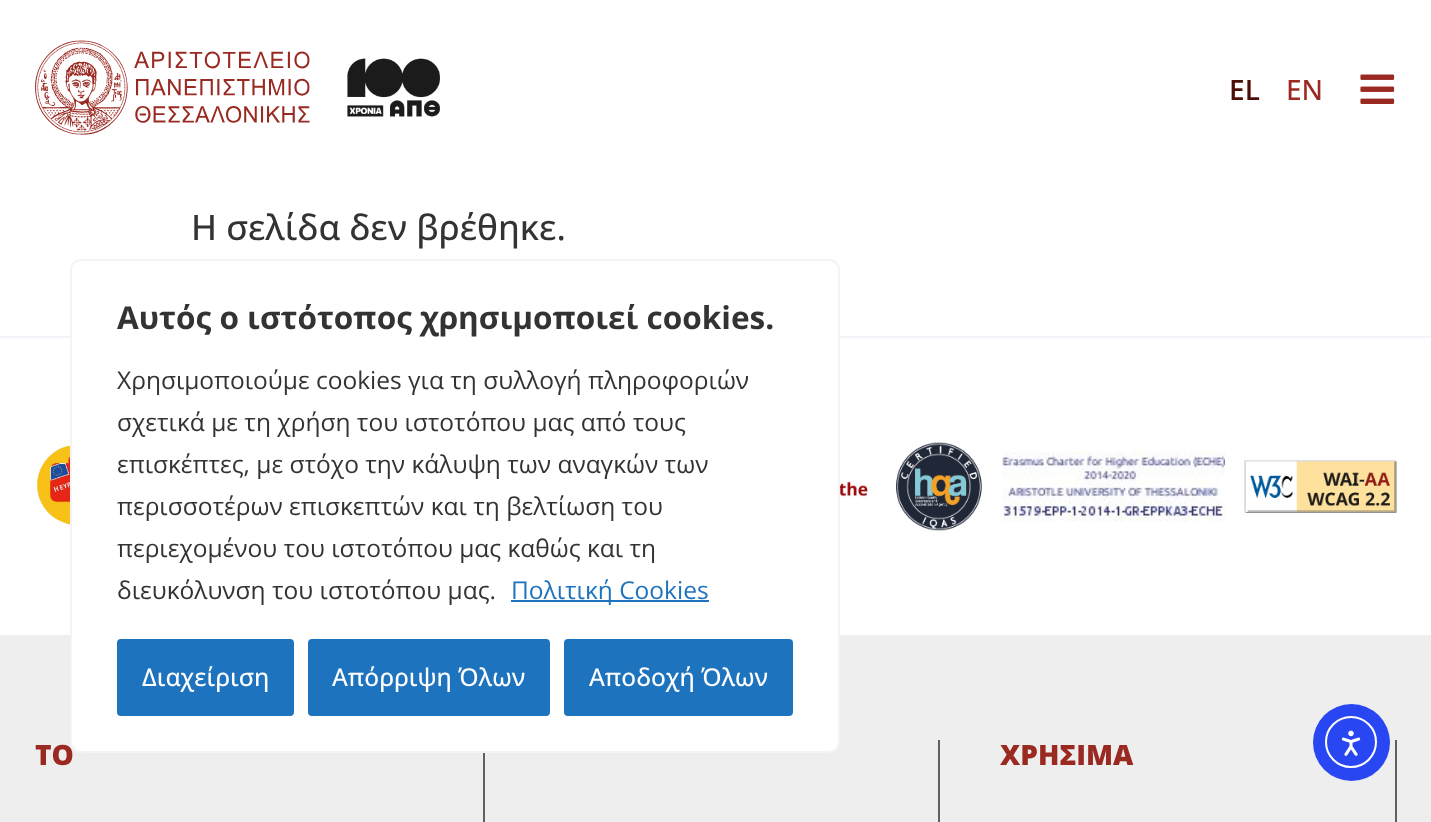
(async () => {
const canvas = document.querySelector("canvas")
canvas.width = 1431
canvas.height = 822
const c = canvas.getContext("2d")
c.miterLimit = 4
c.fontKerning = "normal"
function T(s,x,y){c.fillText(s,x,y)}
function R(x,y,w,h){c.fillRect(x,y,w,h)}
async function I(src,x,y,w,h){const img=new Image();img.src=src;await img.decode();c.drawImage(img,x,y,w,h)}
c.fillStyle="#fff"
R(0,0,1431,822)
await I("1.png",35,40,275,95)
await I("2.png",347,58,93,59)
c.font="600 28px Open Sans"
c.fillStyle="#4d0d09"
T("EL",1229,100)
c.font="500 28px Open Sans"
c.fillStyle="#9a2921"
T("EN",1286,100)
await I("3.png",1360,74,35,30)
c.font="500 35px Open Sans"
c.fillStyle="#333"
T("Η σελίδα δεν βρέθηκε.",191,240)
c.fillStyle="#f3f4f9"
R(0,336,1431,2)
await I("4.png",37,445,33,80)
await I("5.png",840,446,28,80)
c.fillStyle="#eee"
R(0,635,1431,187)
c.fillStyle="#606060"
R(483,753,2,69)
c.save()
c.beginPath()
c.roundRect(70,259,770,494,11)
c.clip()
c.fillStyle="#acabab4d"
c.filter="blur(9px)"
c.beginPath()
c.roundRect(70,257,770,494,11)
c.fill()
c.filter="none"
c.restore()
c.font="800 28px Open Sans"
c.fillStyle="#9a2921"
T("ΤΟ",35,765)
c.fillStyle="#fff"
c.beginPath()
c.roundRect(71,260,768,492,10)
c.fill()
c.strokeStyle="#f4f4f4"
c.lineWidth=2
c.stroke()
c.font="bold 31.5px Open Sans"
c.fillStyle="#333"
T("Αυτός ο ιστότοπος χρησιμοποιεί cookies.",117,329)
c.font="24.5px Open Sans"
T("Χρησιμοποιούμε cookies για τη συλλογή πληροφοριών",117,389)
T("σχετικά με τη χρήση του ιστοτόπου μας από τους",117,431)
T("επισκέπτες, με στόχο την κάλυψη των αναγκών των",117,473)
T("περισσοτέρων επισκεπτών και τη βελτίωση του",117,515)
T("περιεχομένου του ιστοτόπου μας καθώς και τη",117,557)
T("διευκόλυνση του ιστοτόπου μας.",117,599)
c.fillStyle="#1e73be"
R(511,600,198,2)
T("Πολιτική Cookies",511,599)
c.beginPath()
c.roundRect(119,641,173,73,2)
c.fill()
c.strokeStyle="#1e73be"
c.lineWidth=4
c.stroke()
c.font="500 24.5px Open Sans"
c.fillStyle="#fff"
T("Διαχείριση",142,686)
c.fillStyle="#1e73be"
c.beginPath()
c.roundRect(310,641,238,73,2)
c.fill()
c.stroke()
c.fillStyle="#fff"
T("Απόρριψη Όλων",332,686)
c.fillStyle="#1e73be"
c.beginPath()
c.roundRect(566,641,225,73,2)
c.fill()
c.stroke()
c.fillStyle="#fff"
T("Αποδοχή Όλων",589,686)
await I("6.png",896,442,86,89)
await I("7.png",1002,451,223,71)
await I("8.png",1244,460,153,53)
c.fillStyle="#606060"
R(938,740,2,82)
R(1395,740,2,82)
c.font="800 28px Open Sans"
c.fillStyle="#9a2921"
T("ΧΡΗΣΙΜΑ",1000,765)
c.fillStyle="#2847f3"
c.beginPath()
c.arc(1351.5,742.5,38.5,0,7)
c.fill()
c.beginPath()
c.arc(1351,742,25,0,7)
c.strokeStyle="#fff"
c.lineWidth=2
c.stroke()
await I("9.png",1341,730,20,26)
})()
